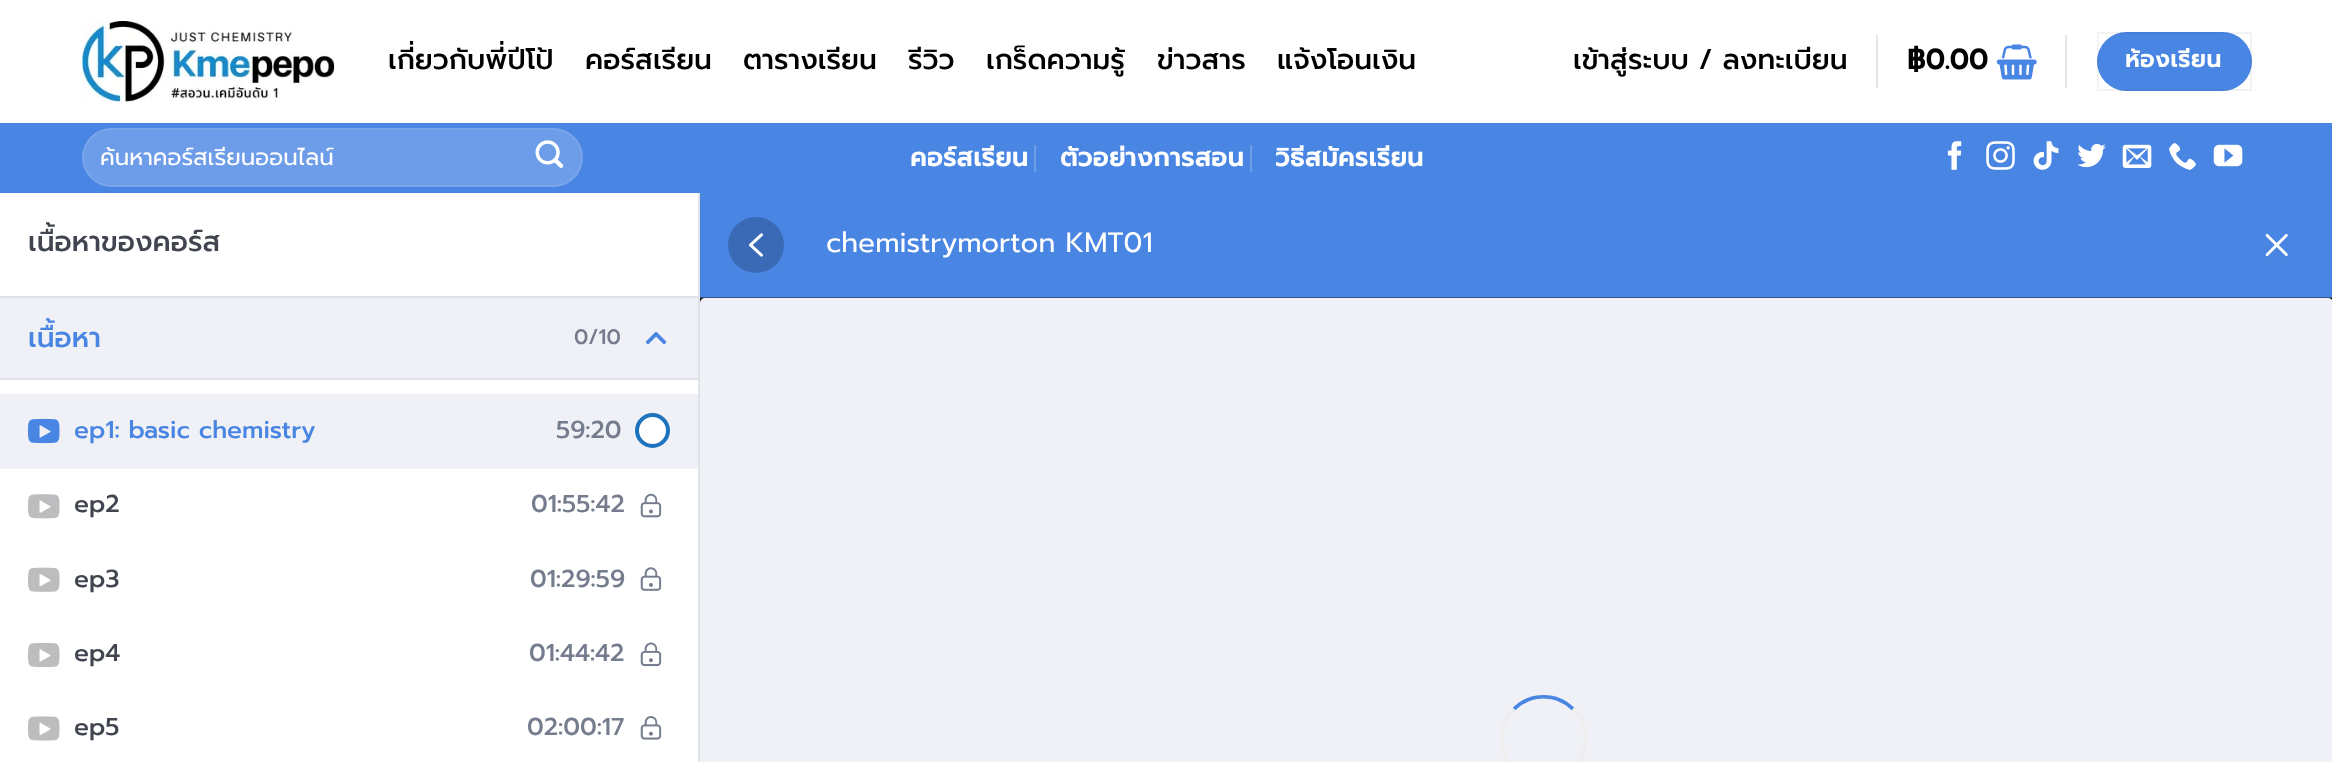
(async () => {
const canvas = document.querySelector("canvas")
canvas.width = 2332
canvas.height = 762
const c = canvas.getContext("2d")
c.miterLimit = 4
c.fontKerning = "normal"
function T(s,x,y){c.fillText(s,x,y)}
function R(x,y,w,h){c.fillRect(x,y,w,h)}
function Q(x,y,w,h,r){c.beginPath();c.roundRect(x,y,w,h,r);c.fill()}
async function I(src,x,y,w,h){const img=new Image();img.src=src;await img.decode();c.drawImage(img,x,y,w,h)}
let path
c.fillStyle="#fff"
R(0,0,2332,762)
await I("1.png",82,21,253,81)
c.font="500 28px Prompt"
c.fillStyle="#000"
T("เกี่ยวกับพี่ปีโป้",388,69)
T("คอร์สเรียน",585,69)
T("ตารางเรียน",743,69)
T("รีวิว",908,69)
T("เกร็ดความรู้",986,69)
T("ข่าวสาร",1157,69)
T("แจ้งโอนเงิน",1277,69)
T("เข้าสู่ระบบ / ลงทะเบียน",1573,69)
c.fillStyle="#e6e6e6"
R(1876,35,2,53)
c.font="bold 28px Prompt"
c.fillStyle="#000"
T("฿0.00",1907,69)
await I("2.png",1996,44,41,36)
c.fillStyle="#e6e6e6"
R(2065,35,2,53)
c.fillStyle="#4985e3"
Q(2097,32,155,59,29.5)
c.strokeStyle="#0000000d"
c.lineWidth=2
c.strokeRect(2098,33,153,57)
c.letterSpacing="0.75px"
c.font="bold 23px Prompt"
c.fillStyle="#fff"
T("ห้องเรียน",2125,67)
c.fillStyle="#4985e3"
R(0,123,2332,70)
c.fillStyle="#6d9de9"
Q(82,128,501,59,29.5)
c.beginPath()
c.roundRect(83,129,499,57,28.5)
c.strokeStyle="#ffffff17"
c.stroke()
c.save()
c.beginPath()
c.rect(100,140,457,35)
c.clip()
c.letterSpacing="0px"
c.font="23px Prompt"
c.fillStyle="#fff"
T("ค้นหาคอร์สเรียนออนไลน์",100,165)
c.restore()
await I("3.png",535,140,29,28)
c.letterSpacing="0.5px"
c.font="bold 25.25px Prompt"
c.fillStyle="#fff"
T("คอร์สเรียน",910,166)
c.fillStyle="#6d9de9"
R(1034,145,2,27)
c.fillStyle="#fff"
T("ตัวอย่างการสอน",1060,166)
c.fillStyle="#6d9de9"
R(1250,145,2,27)
c.fillStyle="#fff"
T("วิธีสมัครเรียน",1275,166)
await I("4.png",1947,141,15,29)
await I("5.png",1986,141,29,29)
await I("6.png",2033,141,26,29)
await I("7.png",2077,143,29,25)
await I("8.png",2122,144,30,24)
await I("9.png",2169,143,27,27)
await I("10.png",2213,144,30,23)
c.fillStyle="#eff1f6"
R(0,298,698,80)
c.fillStyle="#e0e2ea"
R(698,193,2,569)
R(0,296,698,2)
c.letterSpacing="0px"
c.font="500 28px Prompt"
c.fillStyle="#41454f"
T("เนื้อหาของคอร์ส",28,251)
c.fillStyle="#e0e2ea"
R(0,378,698,2)
c.fillStyle="#4985e3"
T("เนื้อหา",28,347)
c.font="500 21px Prompt"
c.fillStyle="#757c8e"
T("0/10",574,344)
await I("11.png",645,331,22,14)
c.fillStyle="#eff1f6"
R(0,394,698,75)
await I("12.png",28,418,32,26)
c.font="500 24.5px Prompt"
c.fillStyle="#4985e3"
T("ep1: basic chemistry",74,438)
c.fillStyle="#757c8e"
T("59:20",556,438)
c.fillStyle="#fff"
c.beginPath()
c.arc(652.5,430.5,15.5,0,7)
c.fill()
c.strokeStyle="#1e73be"
c.lineWidth=4
c.stroke()
await I("13.png",28,494,32,25)
c.fillStyle="#41454f"
T("ep2",74,512)
c.fillStyle="#757c8e"
T("01:55:42",531,512)
await I("14.png",640,493,22,25)
await I("15.png",28,567,32,25)
c.fillStyle="#41454f"
T("ep3",74,587)
c.fillStyle="#757c8e"
T("01:29:59",530,587)
await I("16.png",640,567,22,24)
await I("17.png",28,643,32,24)
c.fillStyle="#41454f"
T("ep4",74,661)
c.fillStyle="#757c8e"
T("01:44:42",529,661)
await I("18.png",640,642,22,25)
await I("19.png",28,716,32,25)
c.fillStyle="#41454f"
T("ep5",74,735)
c.fillStyle="#757c8e"
T("02:00:17",527,735)
await I("20.png",640,716,22,24)
c.fillStyle="#4985e3"
R(700,193,1632,105)
c.fillStyle="#3a6ab6"
c.beginPath()
c.arc(756,245,28,0,7)
c.fill()
await I("21.png",749,233,14,24)
c.font="28px Prompt"
c.fillStyle="#fff"
T("chemistrymorton KMT01",826,252)
await I("22.png",2265,233,23,24)
await I("23.png",700,297,1632,6)
c.fillStyle="#eff1f6"
Q(700,298,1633,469,5)
path = new Path2D("M1514 709c16-16.5 43-16.5 59 0")
c.strokeStyle="#4985e3"
c.lineWidth=3.5
c.stroke(path)
path = new Path2D("M1573 709c8 7.5 12.5 18.5 12.5 29.5c0 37-45.5 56-71.5 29.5c-6-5.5-10-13-11.5-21.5c-3-13.5 1.5-28 11.5-37.5")
c.strokeStyle="#eee"
c.stroke(path)
})()
